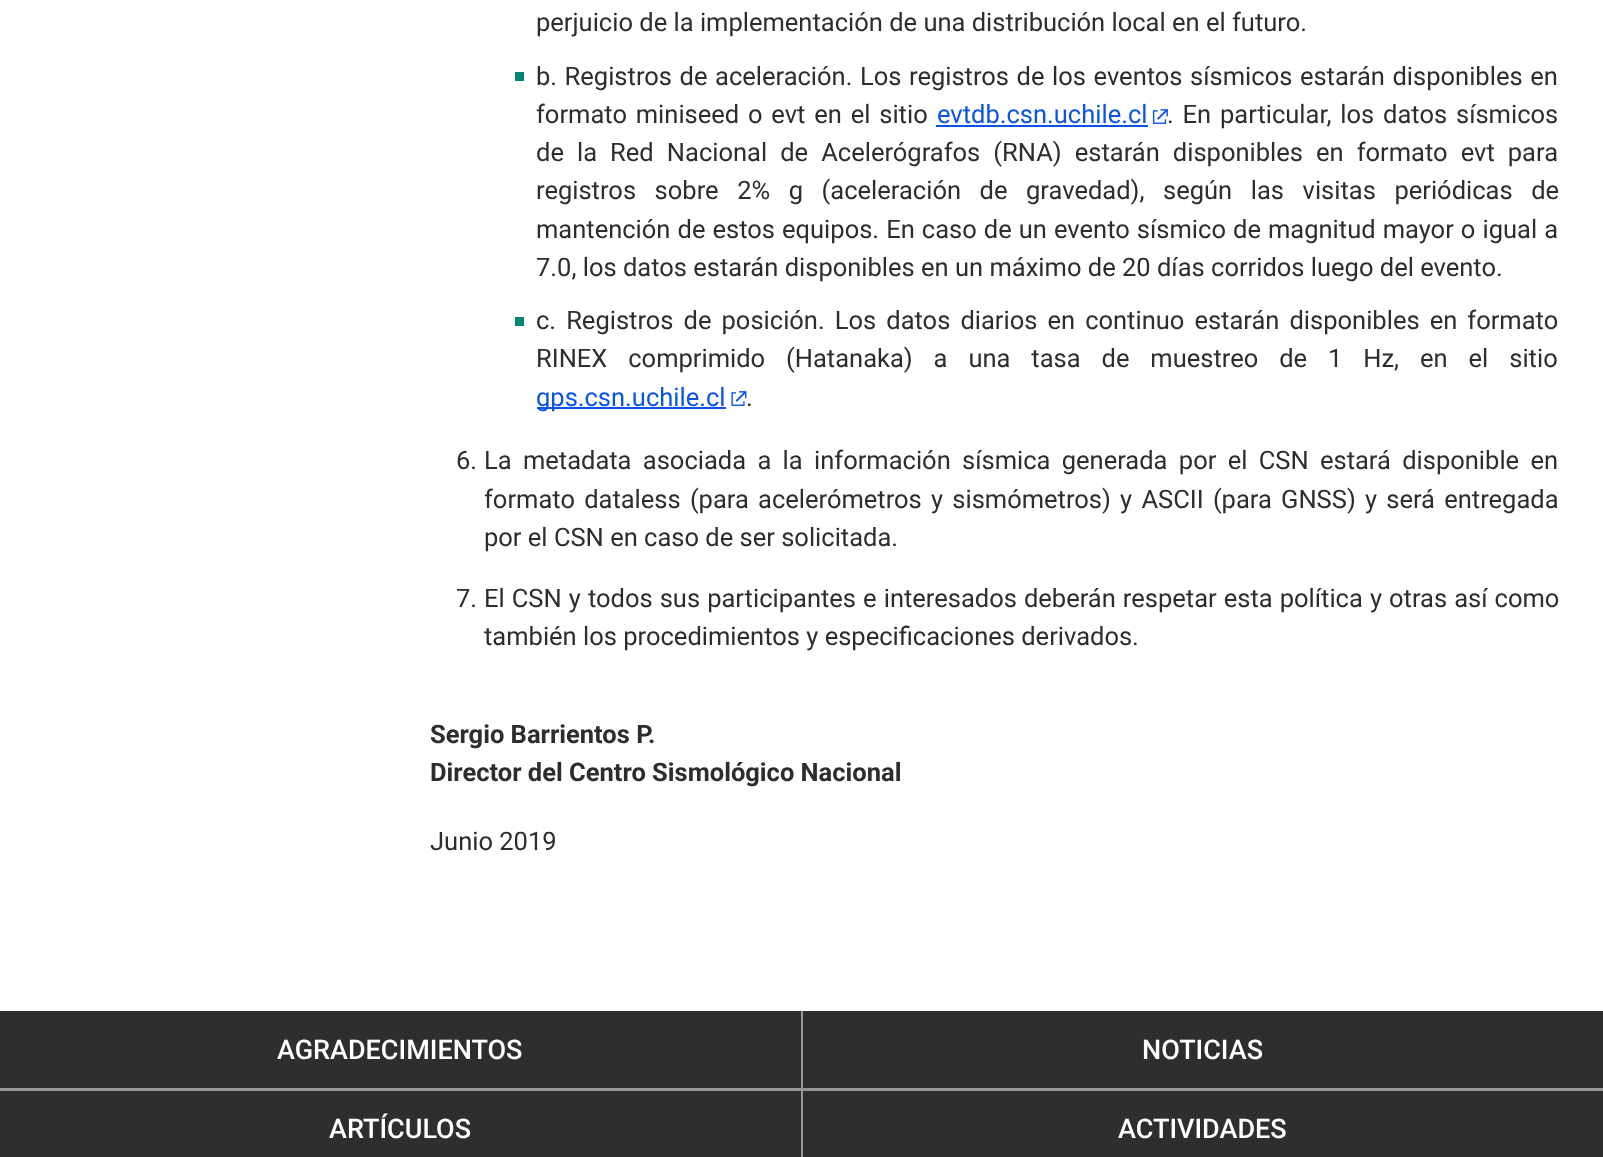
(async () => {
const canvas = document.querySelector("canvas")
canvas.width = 1603
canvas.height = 1157
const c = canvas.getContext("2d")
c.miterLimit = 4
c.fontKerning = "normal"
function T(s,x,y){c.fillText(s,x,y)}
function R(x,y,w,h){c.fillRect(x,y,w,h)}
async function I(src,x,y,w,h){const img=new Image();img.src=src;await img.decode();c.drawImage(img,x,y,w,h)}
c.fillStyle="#fff"
R(0,0,1603,1157)
c.font="25.5px Roboto"
c.fillStyle="#2d2d2d"
T("perjuicio de la implementación de una distribución local en el futuro.",536,31)
c.fillStyle="#008673"
R(515,72,9,9)
c.wordSpacing="1.25px"
c.fillStyle="#2d2d2d"
T("b. Registros de aceleración. Los registros de los eventos sísmicos estarán disponibles en",536,85)
c.wordSpacing="2.5px"
T("formato miniseed o evt en el sitio",536,123)
c.wordSpacing="0px"
c.fillStyle="#0954e7"
T("evtdb.csn.uchile.cl",937,123)
R(936,125,212,2)
await I("1.png",1152,109,16,15)
c.wordSpacing="2.5px"
c.fillStyle="#2d2d2d"
T(". En particular, los datos sísmicos",1167,123)
c.wordSpacing="6.75px"
T("de la Red Nacional de Acelerógrafos (RNA) estarán disponibles en formato evt para",536,161)
c.wordSpacing="12.25px"
T("registros sobre 2% g (aceleración de gravedad), según las visitas periódicas de",536,199)
c.wordSpacing="0.75px"
T("mantención de estos equipos. En caso de un evento sísmico de magnitud mayor o igual a",536,238)
c.wordSpacing="0px"
T("7.0, los datos estarán disponibles en un máximo de 20 días corridos luego del evento.",536,276)
c.fillStyle="#008673"
R(515,317,9,9)
c.wordSpacing="3.75px"
c.fillStyle="#2d2d2d"
T("c. Registros de posición. Los datos diarios en continuo estarán disponibles en formato",536,329)
c.wordSpacing="14.6px"
T("RINEX comprimido (Hatanaka) a una tasa de muestreo de 1 Hz, en el sitio",536,367)
c.fillStyle="#0954e7"
R(537,407,189,2)
c.wordSpacing="0px"
T("gps.csn.uchile.cl",536,406)
await I("2.png",731,391,16,15)
c.fillStyle="#2d2d2d"
T(".",746,406)
T("6.",456,469)
c.wordSpacing="5px"
T("La metadata asociada a la información sísmica generada por el CSN estará disponible en",484,469)
c.wordSpacing="2.9px"
T("formato dataless (para acelerómetros y sismómetros) y ASCII (para GNSS) y será entregada",484,508)
c.wordSpacing="0px"
T("por el CSN en caso de ser solicitada.",484,546)
T("7.",456,607)
c.wordSpacing="0.75px"
T("El CSN y todos sus participantes e interesados deberán respetar esta política y otras así como",484,607)
c.wordSpacing="0px"
T("también los procedimientos y especificaciones derivados.",484,645)
c.font="bold 25.5px Roboto"
T("Sergio Barrientos P.",430,743)
T("Director del Centro Sismológico Nacional",430,781)
c.font="25.5px Roboto"
T("Junio 2019",430,850)
c.fillStyle="#2e2e2d"
R(0,1011,1603,146)
c.fillStyle="#979796"
R(801,1011,2,146)
R(0,1088,801,3)
c.font="500 27px Roboto"
c.fillStyle="#fff"
T("AGRADECIMIENTOS",277,1059)
c.fillStyle="#979796"
R(803,1088,800,3)
c.fillStyle="#fff"
T("NOTICIAS",1142,1059)
T("ARTÍCULOS",329,1138)
T("ACTIVIDADES",1118,1138)
})()
